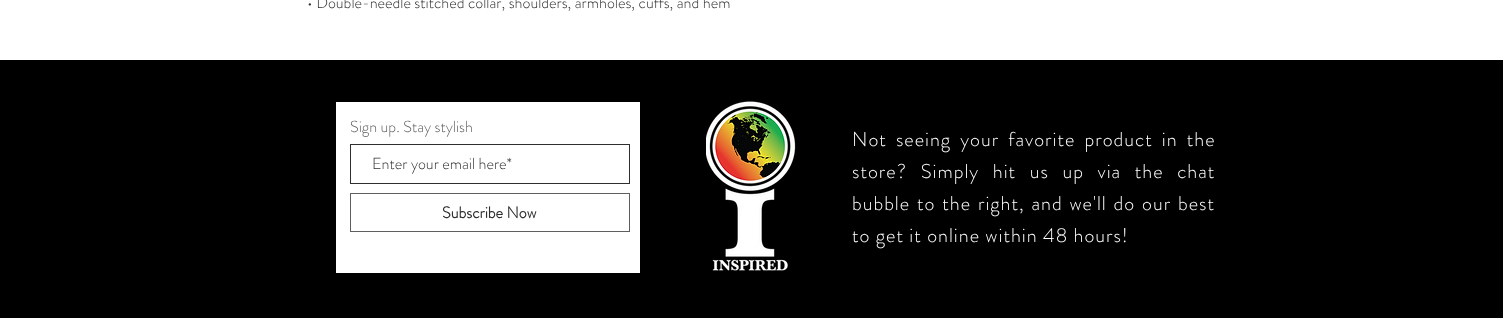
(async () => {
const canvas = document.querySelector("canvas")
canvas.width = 1503
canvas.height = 318
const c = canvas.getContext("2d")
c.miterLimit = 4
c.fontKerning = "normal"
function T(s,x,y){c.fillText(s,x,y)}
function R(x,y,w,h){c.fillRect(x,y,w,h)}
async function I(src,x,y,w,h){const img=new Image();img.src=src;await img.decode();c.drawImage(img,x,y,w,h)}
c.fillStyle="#fff"
R(0,0,1503,318)
c.font="300 16px 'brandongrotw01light'"
c.fillStyle="#2e302f"
T("• Double-needle stitched collar, shoulders, armholes, cuffs, and hem",307,8)
c.fillStyle="#000"
R(0,60,1503,258)
c.fillStyle="#fff"
R(336,102,304,171)
c.fillStyle="#5c5f5e"
T("Sign up. Stay stylish",350,132)
c.strokeStyle="#2e302f"
c.strokeRect(350.5,144.5,279,39)
c.fillStyle="#2e302f"
T("Enter your email here*",372,169)
c.strokeStyle="#5c5f5e"
c.strokeRect(350.5,193.5,279,38)
c.font="bold 16px 'brandongrotw01light'"
T("Subscribe Now",442,218)
await I("1.png",706,101,90,170)
c.letterSpacing="1px"
c.wordSpacing="3.75px"
c.font="300 20px 'brandongrotw01light'"
c.fillStyle="#fff"
T("Not seeing your favorite product in the",852,146)
c.wordSpacing="8.25px"
T("store? Simply hit us up via the chat",852,178)
c.wordSpacing="1.5px"
T("bubble to the right, and we'll do our best",852,210)
c.wordSpacing="0px"
T("to get it online within 48 hours!",852,242)
})()
